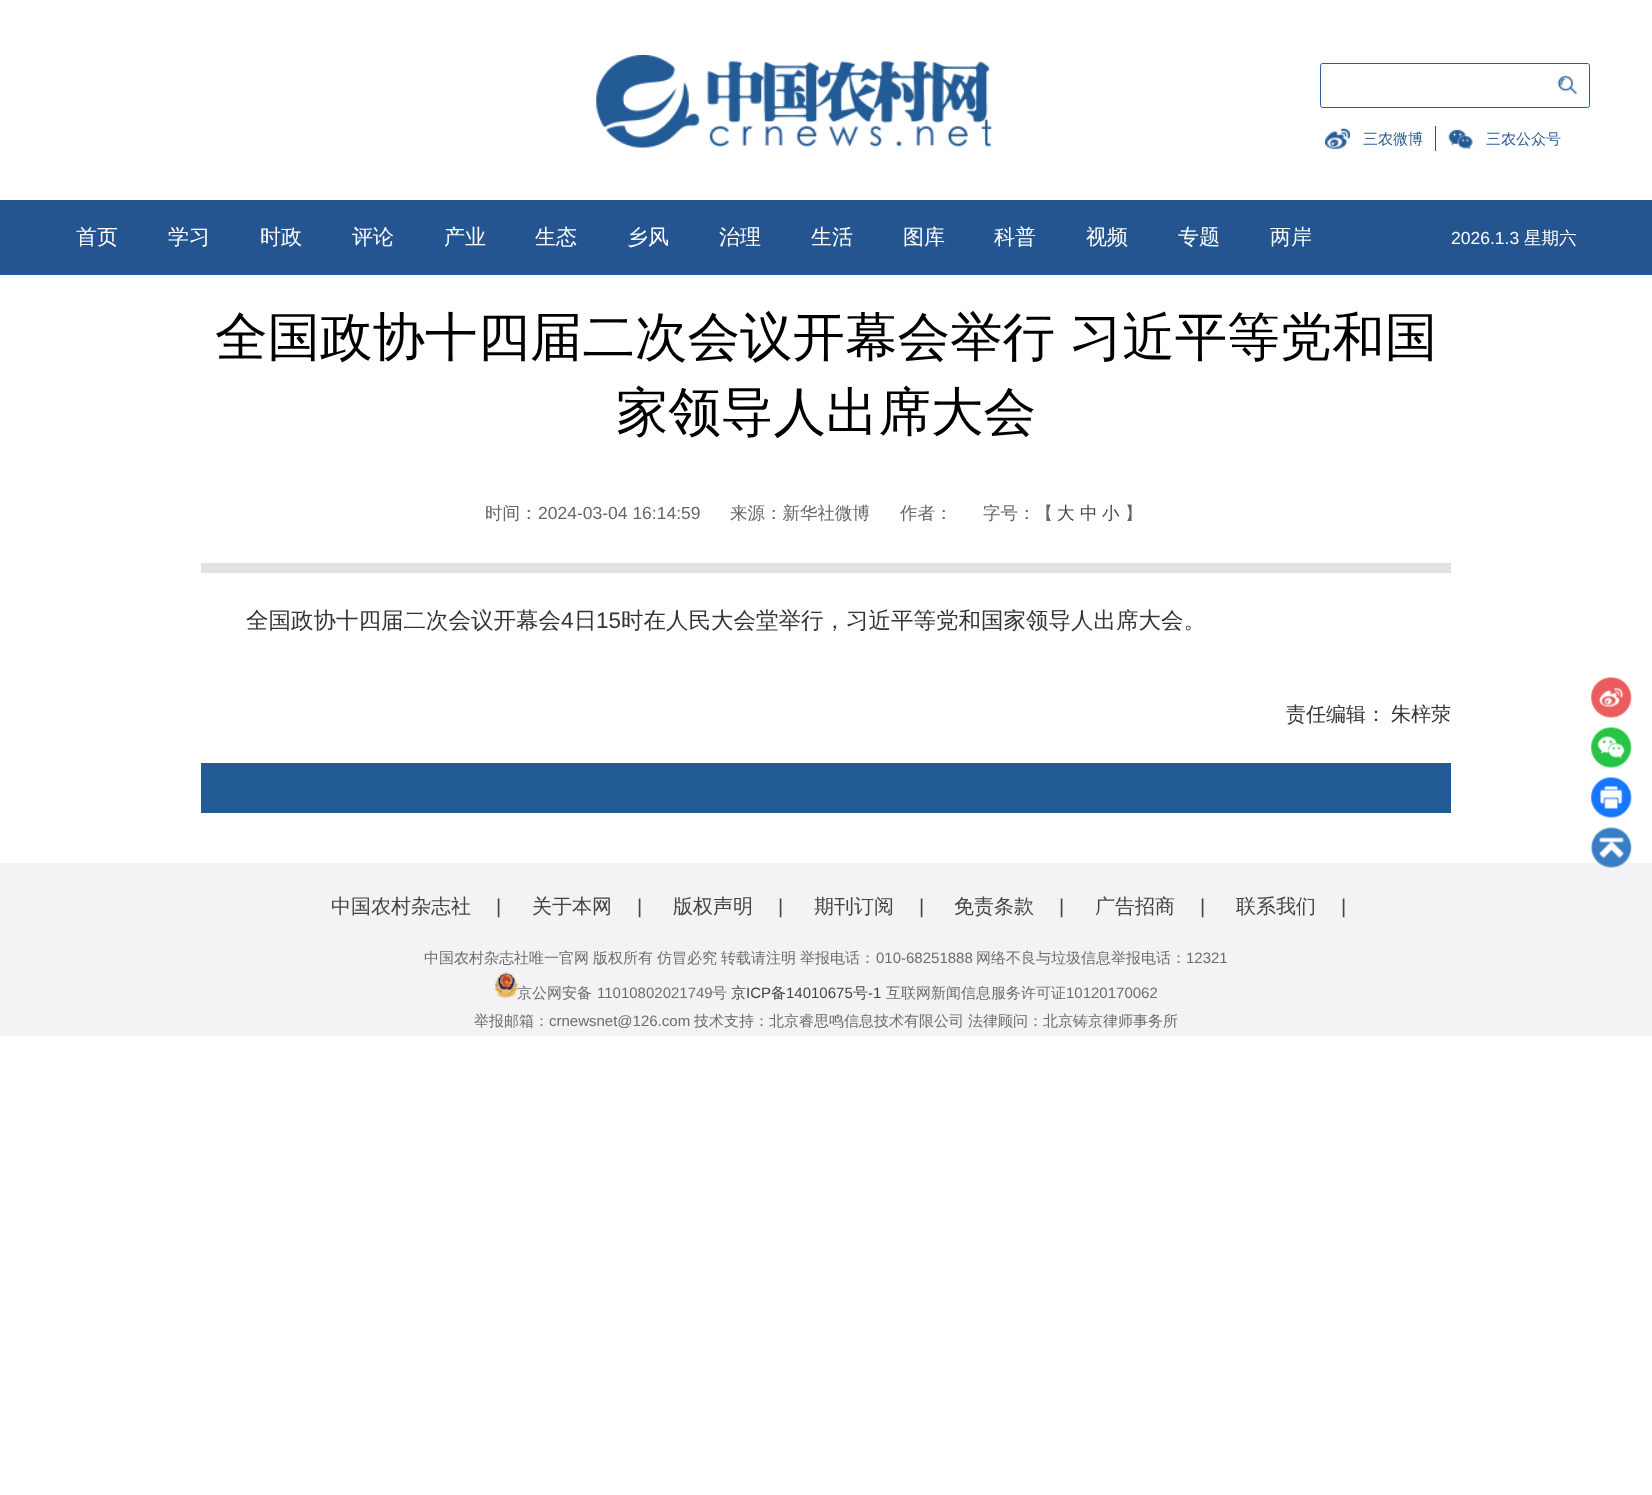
(async () => {
const canvas = document.querySelector("canvas")
canvas.width = 1652
canvas.height = 1495
const c = canvas.getContext("2d")
c.miterLimit = 4
c.fontKerning = "normal"
function T(s,x,y){c.fillText(s,x,y)}
function R(x,y,w,h){c.fillRect(x,y,w,h)}
async function I(src,x,y,w,h){const img=new Image();img.src=src;await img.decode();c.drawImage(img,x,y,w,h)}
c.fillStyle="#fff"
R(0,0,1652,1495)
await I("1.png",596,55,396,93)
c.beginPath()
c.roundRect(1320.5,63.5,269,44,2)
c.strokeStyle="#2d5d97"
c.stroke()
await I("2.png",1557,75,21,20)
await I("3.png",1325,128,25,21)
c.fillStyle="#20518c"
R(1435,126,1,25)
c.font="500 15px WenQuanYi Zen Hei"
c.fillStyle="#2d5d97"
T("三农微博",1363,144)
await I("4.png",1448,129,25,20)
T("三农公众号",1486,144)
c.fillStyle="#255590"
R(0,200,1652,75)
c.font="500 21px WenQuanYi Zen Hei"
c.fillStyle="#fff"
T("首页",76,244)
T("学习",168,244)
T("时政",260,244)
T("评论",352,244)
T("产业",444,244)
T("生态",535,244)
T("乡风",627,244)
T("治理",719,244)
T("生活",811,244)
T("图库",903,244)
T("科普",994,244)
T("视频",1086,244)
T("专题",1178,244)
T("两岸",1270,244)
c.font="17.5px Liberation Sans"
T("2026.1.3",1451,244)
c.font="500 17.5px WenQuanYi Zen Hei"
T("星期六",1524,244)
c.wordSpacing="-1px"
c.font="500 52.5px WenQuanYi Zen Hei"
c.fillStyle="#000"
T("全国政协十四届二次会议开幕会举行 习近平等党和国",215,355)
c.wordSpacing="0px"
T("家领导人出席大会",616,430)
c.fillStyle="#e1e2e4"
R(201,563,1250,10)
c.font="500 17.5px WenQuanYi Zen Hei"
c.fillStyle="#666"
T("时间：",485,519)
c.font="17.5px Liberation Sans"
T("2024-03-04 16:14:59",538,519)
c.font="500 17.5px WenQuanYi Zen Hei"
T("来源：新华社微博",730,519)
T("作者：",900,519)
T("字号：【",983,519)
c.fillStyle="#444"
T("大",1057,519)
T("中",1080,519)
T("小",1102,519)
c.fillStyle="#666"
T("】",1125,519)
await I("5.png",1591,677,41,41)
await I("6.png",1591,727,41,41)
await I("7.png",1591,777,41,41)
c.fillStyle="#f3f3f6"
R(0,863,1652,173)
await I("8.png",1591,827,41,41)
c.font="500 22.5px WenQuanYi Zen Hei"
c.fillStyle="#333"
T("全国政协十四届二次会议开幕会",246,628)
c.font="22.5px Liberation Sans"
T("4",561,628)
c.font="500 22.5px WenQuanYi Zen Hei"
T("日",574,628)
c.font="22.5px Liberation Sans"
T("15",596,628)
c.font="500 22.5px WenQuanYi Zen Hei"
T("时在人民大会堂举行，习近平等党和国家领导人出席大会。",621,628)
c.font="500 20px WenQuanYi Zen Hei"
T("责任编辑：",1286,721)
T("朱梓荥",1391,721)
c.fillStyle="#235b97"
R(201,763,1250,50)
c.fillStyle="#444"
T("中国农村杂志社",331,913)
c.font="20px Liberation Sans"
T("|",496,913)
c.font="500 20px WenQuanYi Zen Hei"
T("关于本网",532,913)
c.font="20px Liberation Sans"
T("|",637,913)
c.font="500 20px WenQuanYi Zen Hei"
T("版权声明",673,913)
c.font="20px Liberation Sans"
T("|",778,913)
c.font="500 20px WenQuanYi Zen Hei"
T("期刊订阅",814,913)
c.font="20px Liberation Sans"
T("|",919,913)
c.font="500 20px WenQuanYi Zen Hei"
T("免责条款",954,913)
c.font="20px Liberation Sans"
T("|",1059,913)
c.font="500 20px WenQuanYi Zen Hei"
T("广告招商",1095,913)
c.font="20px Liberation Sans"
T("|",1200,913)
c.font="500 20px WenQuanYi Zen Hei"
T("联系我们",1236,913)
c.font="20px Liberation Sans"
T("|",1341,913)
c.wordSpacing="-0.5px"
c.font="500 15px WenQuanYi Zen Hei"
c.fillStyle="#6c6c6c"
T("中国农村杂志社唯一官网 版权所有 仿冒必究 转载请注明 举报电话：",424,963)
c.wordSpacing="0px"
c.font="15px Liberation Sans"
T("010-68251888",876,963)
c.font="500 15px WenQuanYi Zen Hei"
T("网络不良与垃圾信息举报电话：",976,963)
c.font="15px Liberation Sans"
T("12321",1186,963)
await I("9.png",495,972,23,26)
c.font="500 15px WenQuanYi Zen Hei"
T("京公网安备",517,998)
c.font="15px Liberation Sans"
T("11010802021749",597,998)
c.font="500 15px WenQuanYi Zen Hei"
T("号",712,998)
c.fillStyle="#444"
T("京",731,998)
c.font="15px Liberation Sans"
T("ICP",746,998)
c.font="500 15px WenQuanYi Zen Hei"
T("备",771,998)
c.font="15px Liberation Sans"
T("14010675",786,998)
c.font="500 15px WenQuanYi Zen Hei"
T("号",853,998)
c.font="15px Liberation Sans"
T("-1",868,998)
c.font="500 15px WenQuanYi Zen Hei"
c.fillStyle="#6c6c6c"
T("互联网新闻信息服务许可证",886,998)
c.font="15px Liberation Sans"
T("10120170062",1066,998)
c.font="500 15px WenQuanYi Zen Hei"
T("举报邮箱：",474,1026)
c.font="15px Liberation Sans"
T("crnewsnet@126.com",549,1026)
c.wordSpacing="-0.5px"
c.font="500 15px WenQuanYi Zen Hei"
T("技术支持：北京睿思鸣信息技术有限公司 法律顾问：北京铸京律师事务所",694,1026)
})()
